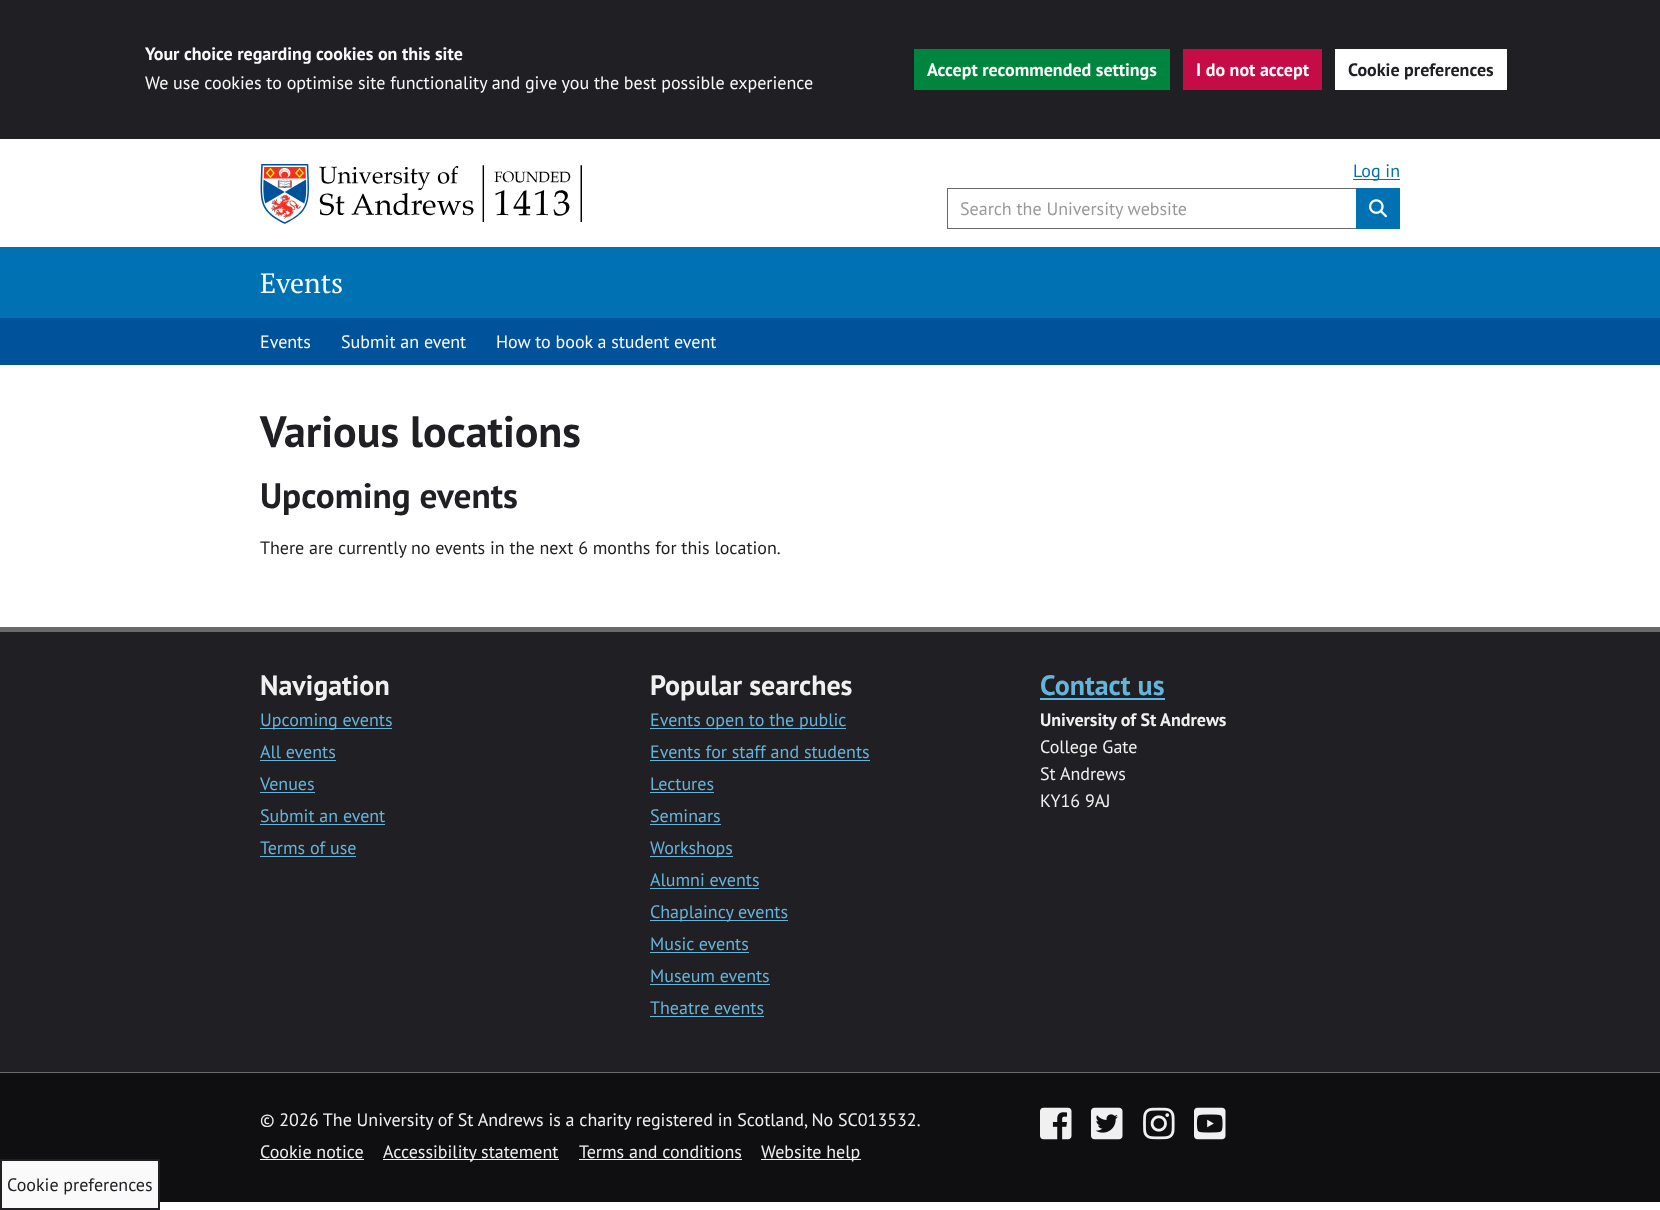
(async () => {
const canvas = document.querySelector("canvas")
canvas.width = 1660
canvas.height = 1210
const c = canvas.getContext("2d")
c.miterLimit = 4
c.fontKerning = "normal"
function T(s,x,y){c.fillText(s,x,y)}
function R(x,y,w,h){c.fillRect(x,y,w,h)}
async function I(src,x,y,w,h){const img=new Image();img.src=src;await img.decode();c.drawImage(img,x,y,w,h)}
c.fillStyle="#fff"
R(0,0,1660,1210)
c.fillStyle="#202024"
R(0,0,1660,139)
c.font="bold 18px PT Sans"
c.fillStyle="#fafafa"
T("Your choice regarding cookies on this site",145,60)
c.font="18px PT Sans"
T("We use cookies to optimise site functionality and give you the best possible experience",145,89)
c.fillStyle="#00853f"
R(914,49,256,41)
c.font="bold 18px PT Sans"
c.fillStyle="#fafafa"
T("Accept recommended settings",927,76)
c.fillStyle="#c60c46"
R(1183,49,139,41)
c.fillStyle="#fafafa"
T("I do not accept",1196,76)
c.fillStyle="#fff"
R(1335,49,172,41)
c.fillStyle="#202024"
T("Cookie preferences",1348,76)
await I("1.png",260,164,322,60)
c.fillStyle="#0071b3"
R(1353,179,47,1)
c.font="18px PT Sans"
T("Log in",1353,177)
c.strokeStyle="#6a6a6b"
c.strokeRect(947.5,188.5,409,40)
c.fillStyle="#999"
T("Search the University website",960,215)
c.fillStyle="#0071b3"
R(1356,188,44,41)
await I("2.png",1369,199,18,19)
R(0,247,1660,71)
c.font="28px PT Serif"
c.fillStyle="#fafafa"
T("Events",260,293)
c.fillStyle="#00539b"
R(0,318,1660,47)
c.font="18px PT Sans"
c.fillStyle="#fafafa"
T("Events",260,348)
T("Submit an event",341,348)
T("How to book a student event",496,348)
c.font="bold 44px PT Sans"
c.fillStyle="#202024"
T("Various locations",260,447)
c.font="bold 35.25px PT Sans"
T("Upcoming events",260,508)
c.font="18px PT Sans"
T("There are currently no events in the next 6 months for this location.",260,554)
R(0,632,1660,440)
c.fillStyle="#6a6a6b"
R(0,627,1660,5)
c.font="bold 28px PT Sans"
c.fillStyle="#f0f0f0"
T("Navigation",260,695)
c.fillStyle="#65b4dc"
R(260,728,132,1)
c.font="18px PT Sans"
T("Upcoming events",260,726)
T("All events",260,758)
R(260,760,76,1)
T("Venues",260,790)
R(260,792,55,1)
T("Submit an event",260,822)
R(260,824,125,1)
T("Terms of use",260,854)
R(260,856,96,1)
c.font="bold 28px PT Sans"
c.fillStyle="#f0f0f0"
T("Popular searches",650,695)
c.fillStyle="#65b4dc"
R(650,728,196,1)
c.font="18px PT Sans"
T("Events open to the public",650,726)
T("Events for staff and students",650,758)
R(650,760,220,1)
T("Lectures",650,790)
R(650,792,64,1)
T("Seminars",650,822)
R(650,824,71,1)
R(650,856,83,1)
T("Workshops",650,854)
T("Alumni events",650,886)
R(650,888,109,1)
R(650,920,138,1)
T("Chaplaincy events",650,918)
T("Music events",650,950)
R(650,952,99,1)
T("Museum events",650,982)
R(650,984,120,1)
T("Theatre events",650,1014)
R(650,1016,114,1)
c.font="bold 28px PT Sans"
T("Contact us",1040,695)
R(1040,698,125,2)
c.font="bold 18px PT Sans"
c.fillStyle="#f0f0f0"
T("University of St Andrews",1040,726)
c.font="18px PT Sans"
T("College Gate",1040,753)
T("St Andrews",1040,780)
T("KY16 9AJ",1040,807)
c.fillStyle="#0f0f11"
R(0,1073,1660,129)
c.fillStyle="#6a6a6b"
R(0,1072,1660,1)
c.fillStyle="#f0f0f0"
T("© 2026 The University of St Andrews is a charity registered in Scotland, No SC013532.",260,1126)
T("Cookie notice",260,1158)
R(260,1159,104,1)
R(383,1159,176,1)
T("Accessibility statement",383,1158)
T("Terms and conditions",579,1158)
R(579,1159,163,1)
R(761,1159,100,1)
T("Website help",761,1158)
await I("3.png",1040,1107,32,33)
await I("4.png",1091,1107,32,33)
await I("5.png",1143,1107,32,33)
await I("6.png",1194,1107,32,33)
c.fillStyle="#fafafa"
c.beginPath()
c.rect(1,1160,158,49)
c.fill()
c.strokeStyle="#202024"
c.lineWidth=2
c.stroke()
c.fillStyle="#202024"
T("Cookie preferences",7,1191)
})()
